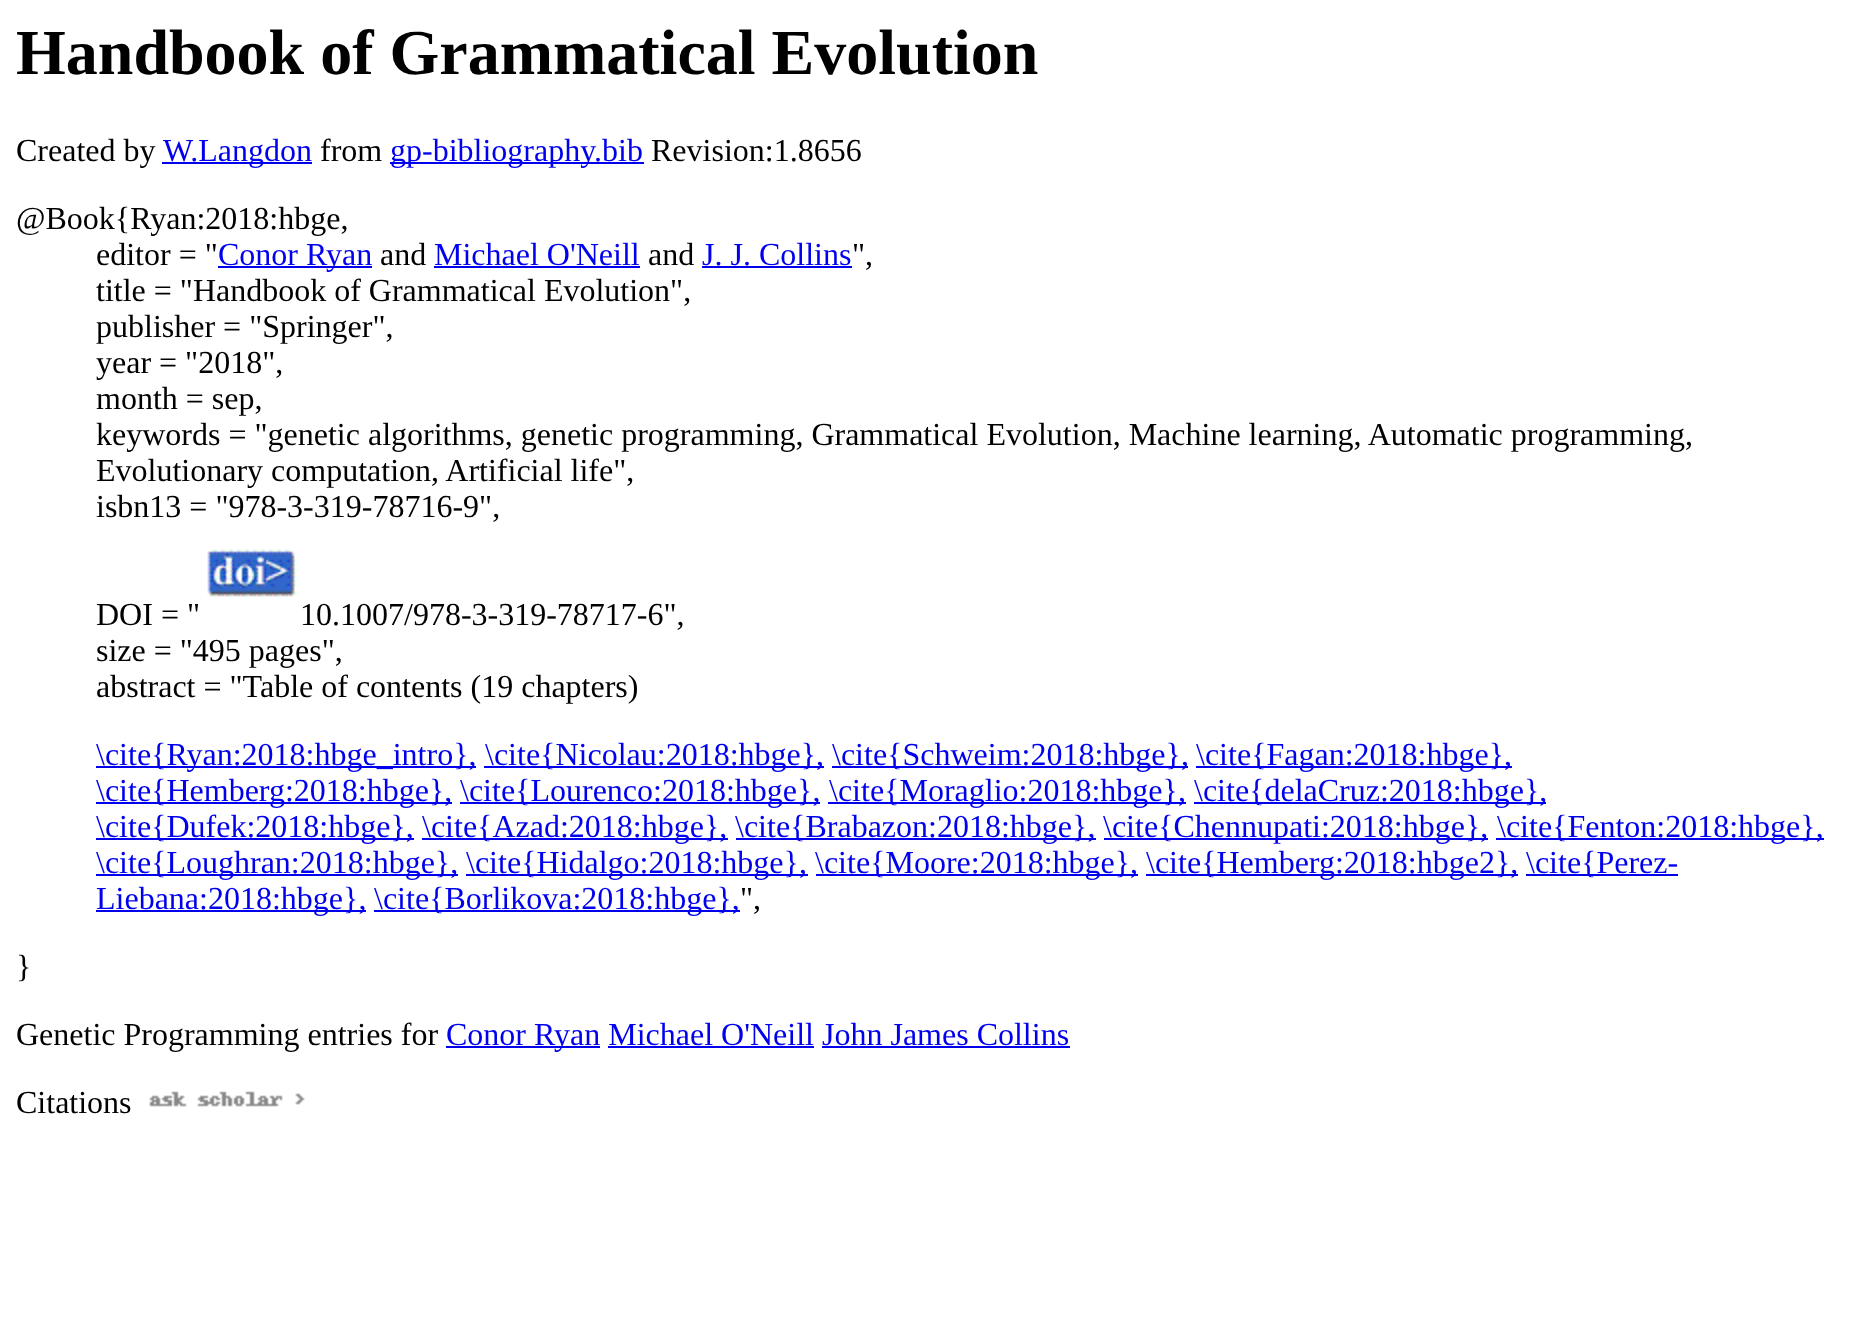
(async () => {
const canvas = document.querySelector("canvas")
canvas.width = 1852
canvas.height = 1324
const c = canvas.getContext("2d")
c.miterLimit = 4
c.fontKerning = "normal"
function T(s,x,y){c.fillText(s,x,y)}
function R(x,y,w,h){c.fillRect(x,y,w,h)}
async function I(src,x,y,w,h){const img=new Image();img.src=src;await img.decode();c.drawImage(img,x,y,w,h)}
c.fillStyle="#fff"
R(0,0,1852,1324)
c.font="bold 64px Liberation Serif"
c.fillStyle="#000"
T("Handbook of Grammatical Evolution",16,74)
c.font="32px Liberation Serif"
T("Created by",16,161)
c.fillStyle="#00e"
R(162,162,150,2)
T("W.Langdon",163,161)
c.fillStyle="#000"
T("from",320,161)
c.fillStyle="#00e"
R(390,162,254,2)
T("gp-bibliography.bib",390,161)
c.fillStyle="#000"
T("Revision:1.8656",651,161)
T("@Book{Ryan:2018:hbge,",16,229)
T("editor = \"",96,265)
c.fillStyle="#00e"
R(218,266,154,2)
T("Conor Ryan",218,265)
c.fillStyle="#000"
T("and",380,265)
c.fillStyle="#00e"
T("Michael O'Neill",434,265)
R(434,266,206,2)
c.fillStyle="#000"
T("and",648,265)
c.fillStyle="#00e"
T("J. J. Collins",702,265)
R(702,266,150,2)
c.fillStyle="#000"
T("\",",852,265)
T("title = \"Handbook of Grammatical Evolution\",",96,301)
T("publisher = \"Springer\",",96,337)
T("year = \"2018\",",96,373)
T("month = sep,",96,409)
T("keywords = \"genetic algorithms, genetic programming, Grammatical Evolution, Machine learning, Automatic programming,",96,445)
T("Evolutionary computation, Artificial life\",",96,481)
T("isbn13 = \"978-3-319-78716-9\",",96,517)
await I("1.png",207,549,90,48)
T("DOI = \"",96,625)
T("10.1007/978-3-319-78717-6\",",300,625)
T("size = \"495 pages\",",96,661)
T("abstract = \"Table of contents (19 chapters)",96,697)
c.fillStyle="#00e"
R(96,766,380,2)
T("\\cite{Ryan:2018:hbge_intro},",96,765)
R(484,766,340,2)
T("\\cite{Nicolau:2018:hbge},",485,765)
R(832,766,356,2)
T("\\cite{Schweim:2018:hbge},",832,765)
R(1196,766,316,2)
T("\\cite{Fagan:2018:hbge},",1196,765)
R(96,802,356,2)
T("\\cite{Hemberg:2018:hbge},",96,801)
R(460,802,360,2)
T("\\cite{Lourenco:2018:hbge},",460,801)
R(828,802,358,2)
T("\\cite{Moraglio:2018:hbge},",829,801)
R(1194,802,352,2)
T("\\cite{delaCruz:2018:hbge},",1194,801)
R(96,838,318,2)
T("\\cite{Dufek:2018:hbge},",96,837)
R(422,838,306,2)
T("\\cite{Azad:2018:hbge},",422,837)
R(736,838,360,2)
T("\\cite{Brabazon:2018:hbge},",735,837)
R(1104,838,384,2)
T("\\cite{Chennupati:2018:hbge},",1103,837)
R(1496,838,328,2)
T("\\cite{Fenton:2018:hbge},",1497,837)
R(96,874,362,2)
T("\\cite{Loughran:2018:hbge},",96,873)
R(466,874,342,2)
T("\\cite{Hidalgo:2018:hbge},",466,873)
R(816,874,322,2)
T("\\cite{Moore:2018:hbge},",815,873)
R(1146,874,372,2)
T("\\cite{Hemberg:2018:hbge2},",1146,873)
R(1526,874,152,2)
T("\\cite{Perez-",1526,873)
R(96,910,270,2)
T("Liebana:2018:hbge},",96,909)
R(374,910,366,2)
T("\\cite{Borlikova:2018:hbge},",374,909)
c.fillStyle="#000"
T("\",",740,909)
T("}",16,977)
T("Genetic Programming entries for",16,1045)
c.fillStyle="#00e"
R(446,1046,154,2)
T("Conor Ryan Michael O'Neill John James Collins",446,1045)
R(608,1046,206,2)
R(822,1046,248,2)
c.fillStyle="#000"
T("Citations",16,1113)
await I("2.png",149,1091,156,16)
})()
